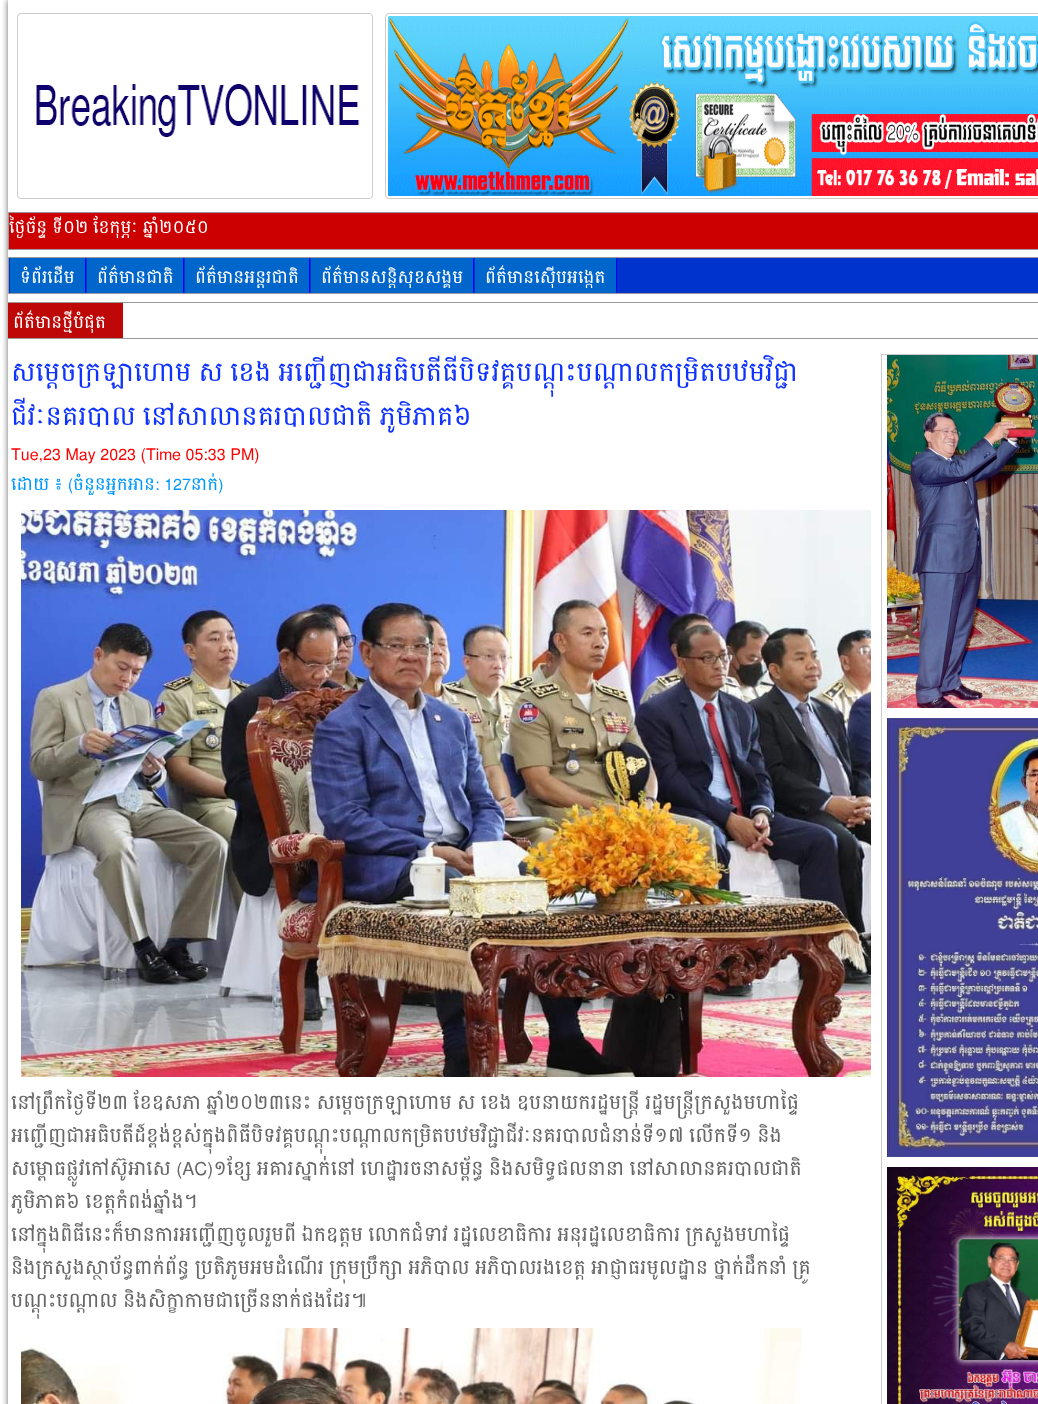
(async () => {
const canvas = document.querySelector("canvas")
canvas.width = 1038
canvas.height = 1404
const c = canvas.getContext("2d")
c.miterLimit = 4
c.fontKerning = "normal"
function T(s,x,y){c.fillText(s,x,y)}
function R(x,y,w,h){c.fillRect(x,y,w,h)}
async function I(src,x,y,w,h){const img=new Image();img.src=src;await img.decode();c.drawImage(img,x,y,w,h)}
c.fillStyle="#fff"
R(0,0,1038,1404)
c.save()
c.beginPath()
c.rect(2,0,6,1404)
c.clip()
c.fillStyle="#666"
c.filter="blur(3px)"
c.beginPath()
c.rect(8,0,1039,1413)
c.fill()
c.filter="none"
c.restore()
c.beginPath()
c.roundRect(17.5,13.5,355,185,3.5)
c.strokeStyle="#ccc"
c.stroke()
await I("1.png",36,84,324,53)
c.beginPath()
c.roundRect(385.5,13.5,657,185,3.5)
c.stroke()
await I("2.png",388,16,650,180)
c.fillStyle="#c00"
c.beginPath()
c.rect(8.5,212.5,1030,37)
c.fill()
c.strokeStyle="#999"
c.stroke()
c.font="16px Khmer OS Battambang"
c.fillStyle="#fff"
T("ថ្ងៃច័ន្ទ ទី០២ ខែកុម្ភៈ ឆ្នាំ២០៥០",9,233)
c.fillStyle="#03c"
c.beginPath()
c.rect(8.5,257.5,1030,36)
c.fill()
c.stroke()
c.fillStyle="#06c"
R(10,258,75,35)
c.fillStyle="#00f"
R(85,258,1,35)
c.fillStyle="#fff"
T("ទំព័រដើម",20,283)
c.fillStyle="#06c"
R(87,258,96,35)
c.fillStyle="#00f"
R(183,258,1,35)
c.fillStyle="#fff"
T("ព័ត៌មានជាតិ",97,283)
c.fillStyle="#06c"
R(185,258,124,35)
c.fillStyle="#00f"
R(309,258,1,35)
c.fillStyle="#fff"
T("ព័ត៌មានអន្តរជាតិ",195,283)
c.fillStyle="#06c"
R(311,258,162,35)
c.fillStyle="#00f"
R(473,258,1,35)
c.fillStyle="#fff"
T("ព័ត៌មានសន្តិសុខសង្គម",321,283)
c.fillStyle="#06c"
R(475,258,141,35)
c.fillStyle="#00f"
R(616,258,1,35)
c.fillStyle="#fff"
T("ព័ត៌មានស៊ើបអង្កេត",485,283)
c.fillStyle="#999"
R(8,302,1030,1)
R(8,338,1030,1)
c.fillStyle="#be0707"
R(8,303,115,35)
c.fillStyle="#fff"
T("ព័ត៌មានថ្មីបំផុត",13,328)
c.font="24px Khmer OS Battambang"
c.fillStyle="#0e32ff"
T("សម្តេចក្រឡាហោម ស ខេង អញ្ជើញជាអធិបតីធីបិទវគ្គបណ្តុះបណ្តាលកម្រិតបឋមវិជ្ជា",11,381)
T("ជីវៈនគរបាល នៅសាលានគរបាលជាតិ ភូមិភាគ៦",11,425)
c.font="16px Khmer OS Battambang"
c.fillStyle="#f00"
T("Tue,23 May 2023 (Time 05:33 PM)",11,460)
c.fillStyle="#09f"
T("ដោយ ៖ (ចំនួនអ្នកអាន: 127នាក់)",11,490)
await I("3.png",21,510,850,567)
c.font="18px Khmer OS Battambang"
c.fillStyle="#666"
T("នៅព្រឹកថ្ងៃទី២៣ ខែឧសភា ឆ្នាំ២០២៣នេះ សម្ដេចក្រឡាហោម ស ខេង ឧបនាយករដ្ឋមន្ត្រី រដ្ឋមន្ត្រីក្រសួងមហាផ្ទៃ",11,1109)
T("អញ្ជើញជាអធិបតីដ៍ខ្ពង់ខ្ពស់ក្នុងពិធីបិទវគ្គបណ្តុះបណ្តាលកម្រិតបឋមវិជ្ជាជីវៈនគរបាលជំនាន់ទី១៧ លើកទី១ និង",11,1142)
T("សម្ពោធផ្លូវកៅស៊ូអាសេ (AC)១ខ្សែ អគារស្នាក់នៅ ហេដ្ឋារចនាសម្ព័ន្ធ និងសមិទ្ធផលនានា នៅសាលានគរបាលជាតិ",11,1175)
T("ភូមិភាគ៦ ខេត្តកំពង់ឆ្នាំង។",11,1208)
T("នៅក្នុងពិធីនេះក៏មានការអញ្ជើញចូលរួមពី ឯកឧត្តម លោកជំទាវ រដ្ឋលេខាធិការ អនុរដ្ឋលេខាធិការ ក្រសួងមហាផ្ទៃ",11,1241)
T("និងក្រសួងស្ថាប័ន្ធពាក់ព័ន្ធ ប្រតិភូមអមដំណើរ ក្រុមប្រឹក្សា អភិបាល អភិបាលរងខេត្ត អាជ្ញាធរមូលដ្ឋាន ថ្នាក់ដឹកនាំ គ្រូ",11,1274)
T("បណ្តុះបណ្តាល និងសិក្ខាកាមជាច្រើននាក់ផងដែរ៕",11,1307)
await I("4.png",21,1328,782,76)
c.strokeStyle="#ccc"
c.strokeRect(881.5,354.5,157,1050)
await I("5.png",887,355,151,353)
await I("6.png",887,718,151,439)
await I("7.png",887,1167,151,237)
})()
